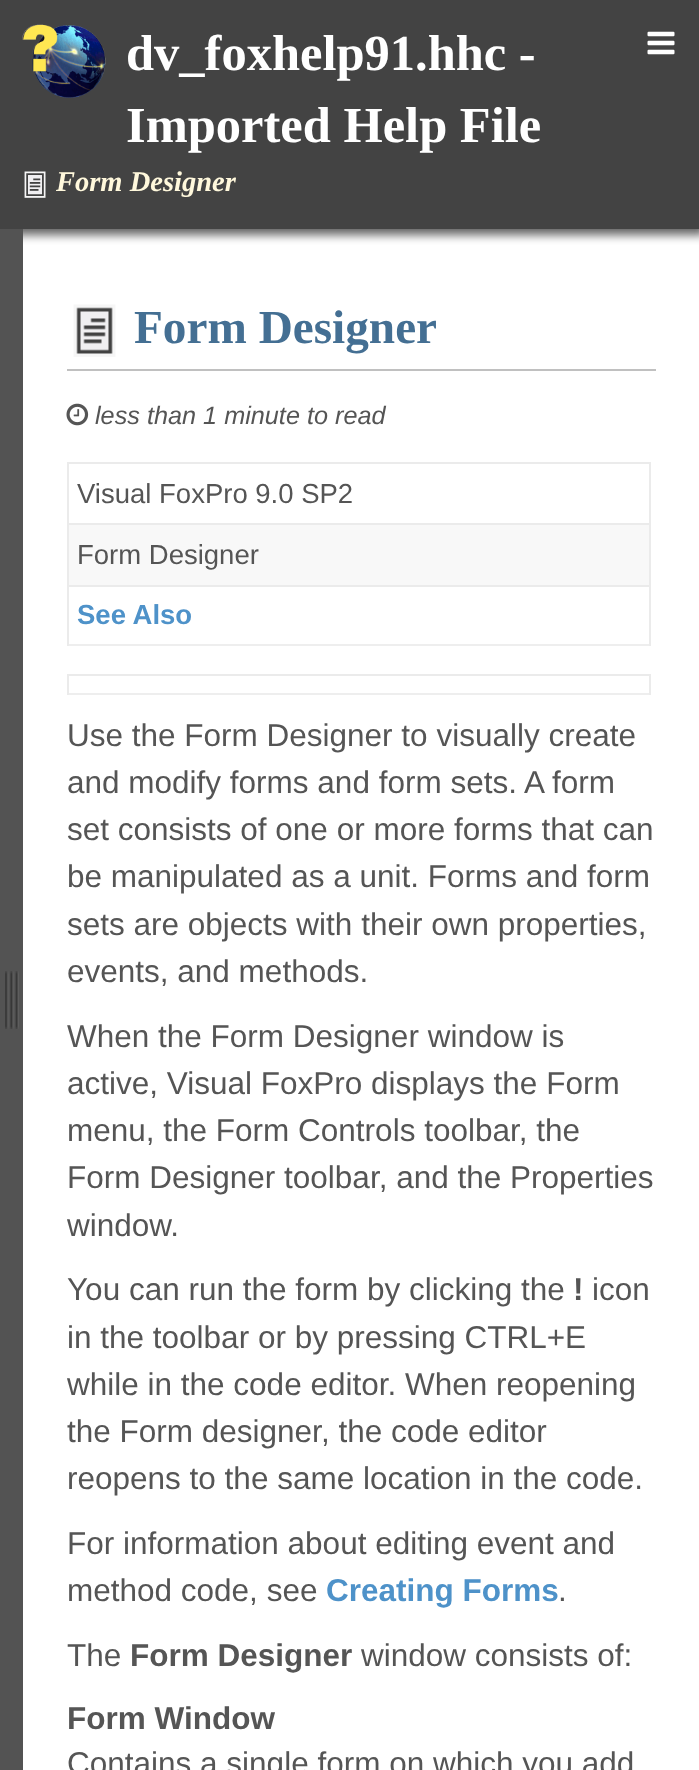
(async () => {
const canvas = document.querySelector("canvas")
canvas.width = 699
canvas.height = 1770
const c = canvas.getContext("2d")
c.miterLimit = 4
c.fontKerning = "normal"
function T(s,x,y){c.fillText(s,x,y)}
function R(x,y,w,h){c.fillRect(x,y,w,h)}
async function I(src,x,y,w,h){const img=new Image();img.src=src;await img.decode();c.drawImage(img,x,y,w,h)}
c.fillStyle="#fff"
R(0,0,699,1770)
c.fillStyle="#636363"
c.filter="blur(5px)"
c.beginPath()
c.rect(5,5,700,230)
c.fill()
c.filter="none"
c.fillStyle="#434343"
R(0,0,699,229)
await I("1.png",22,24,84,74)
c.font="bold 50.5px Liberation Serif"
c.fillStyle="#fff"
T("dv_foxhelp91.hhc -",126,70)
T("Imported Help File",126,142)
await I("2.png",647,31,28,24)
await I("3.png",24,171,22,27)
c.font="italic bold 28.5px Liberation Serif"
c.fillStyle="#fff8dc"
T("Form Designer",56,191)
c.fillStyle="#535353"
R(0,229,23,1541)
await I("4.png",5,971,14,58)
c.fillStyle="#c0c0c0"
R(67,369,589,2)
await I("5.png",73,304,43,53)
c.font="bold 47.25px Liberation Serif"
c.fillStyle="#446f93"
T("Form Designer",134,343)
await I("6.png",66,403,23,23)
c.font="italic 25.25px Liberation Sans"
c.fillStyle="#555"
T("less than 1 minute to read",95,424)
c.fillStyle="#eee"
R(67,644,584,2)
c.fillStyle="#ebebeb"
R(67,462,584,2)
R(67,523,584,2)
R(67,585,584,2)
R(649,585,2,61)
R(649,523,2,63)
R(649,462,2,63)
R(67,585,2,61)
R(67,523,2,63)
R(67,462,2,63)
c.font="27.5px Liberation Sans"
c.fillStyle="#555"
T("Visual FoxPro 9.0 SP2",77,503)
c.fillStyle="#f8f8f8"
R(69,525,580,60)
c.fillStyle="#555"
T("Form Designer",77,564)
c.font="bold 27.5px Liberation Sans"
c.fillStyle="#4e92c9"
T("See Also",77,624)
c.fillStyle="#eee"
R(67,693,584,2)
c.fillStyle="#ebebeb"
R(67,674,584,2)
R(649,674,2,21)
R(67,674,2,21)
c.font="31.5px Liberation Sans"
c.fillStyle="#555"
T("Use the Form Designer to visually create",67,746)
T("and modify forms and form sets. A form",67,793)
T("set consists of one or more forms that can",67,840)
T("be manipulated as a unit. Forms and form",67,887)
T("sets are objects with their own properties,",67,935)
T("events, and methods.",67,982)
T("When the Form Designer window is",67,1047)
T("active, Visual FoxPro displays the Form",67,1094)
T("menu, the Form Controls toolbar, the",67,1141)
T("Form Designer toolbar, and the Properties",67,1188)
T("window.",67,1236)
T("You can run the form by clicking the",67,1300)
c.font="bold 31.5px Liberation Sans"
T("!",573,1300)
c.font="31.5px Liberation Sans"
T("icon",592,1300)
T("in the toolbar or by pressing CTRL+E",67,1348)
T("while in the code editor. When reopening",67,1395)
T("the Form designer, the code editor",67,1442)
T("reopens to the same location in the code.",67,1489)
T("For information about editing event and",67,1554)
T("method code, see",67,1601)
c.font="bold 31.5px Liberation Sans"
c.fillStyle="#4e92c9"
T("Creating Forms",326,1601)
c.font="31.5px Liberation Sans"
c.fillStyle="#555"
T(".",558,1601)
T("The",67,1666)
c.font="bold 31.5px Liberation Sans"
T("Form Designer",130,1666)
c.font="31.5px Liberation Sans"
T("window consists of:",361,1666)
c.font="bold 31.5px Liberation Sans"
T("Form Window",67,1729)
c.font="31.5px Liberation Sans"
T("Contains a single form on which you add",67,1774)
})()
